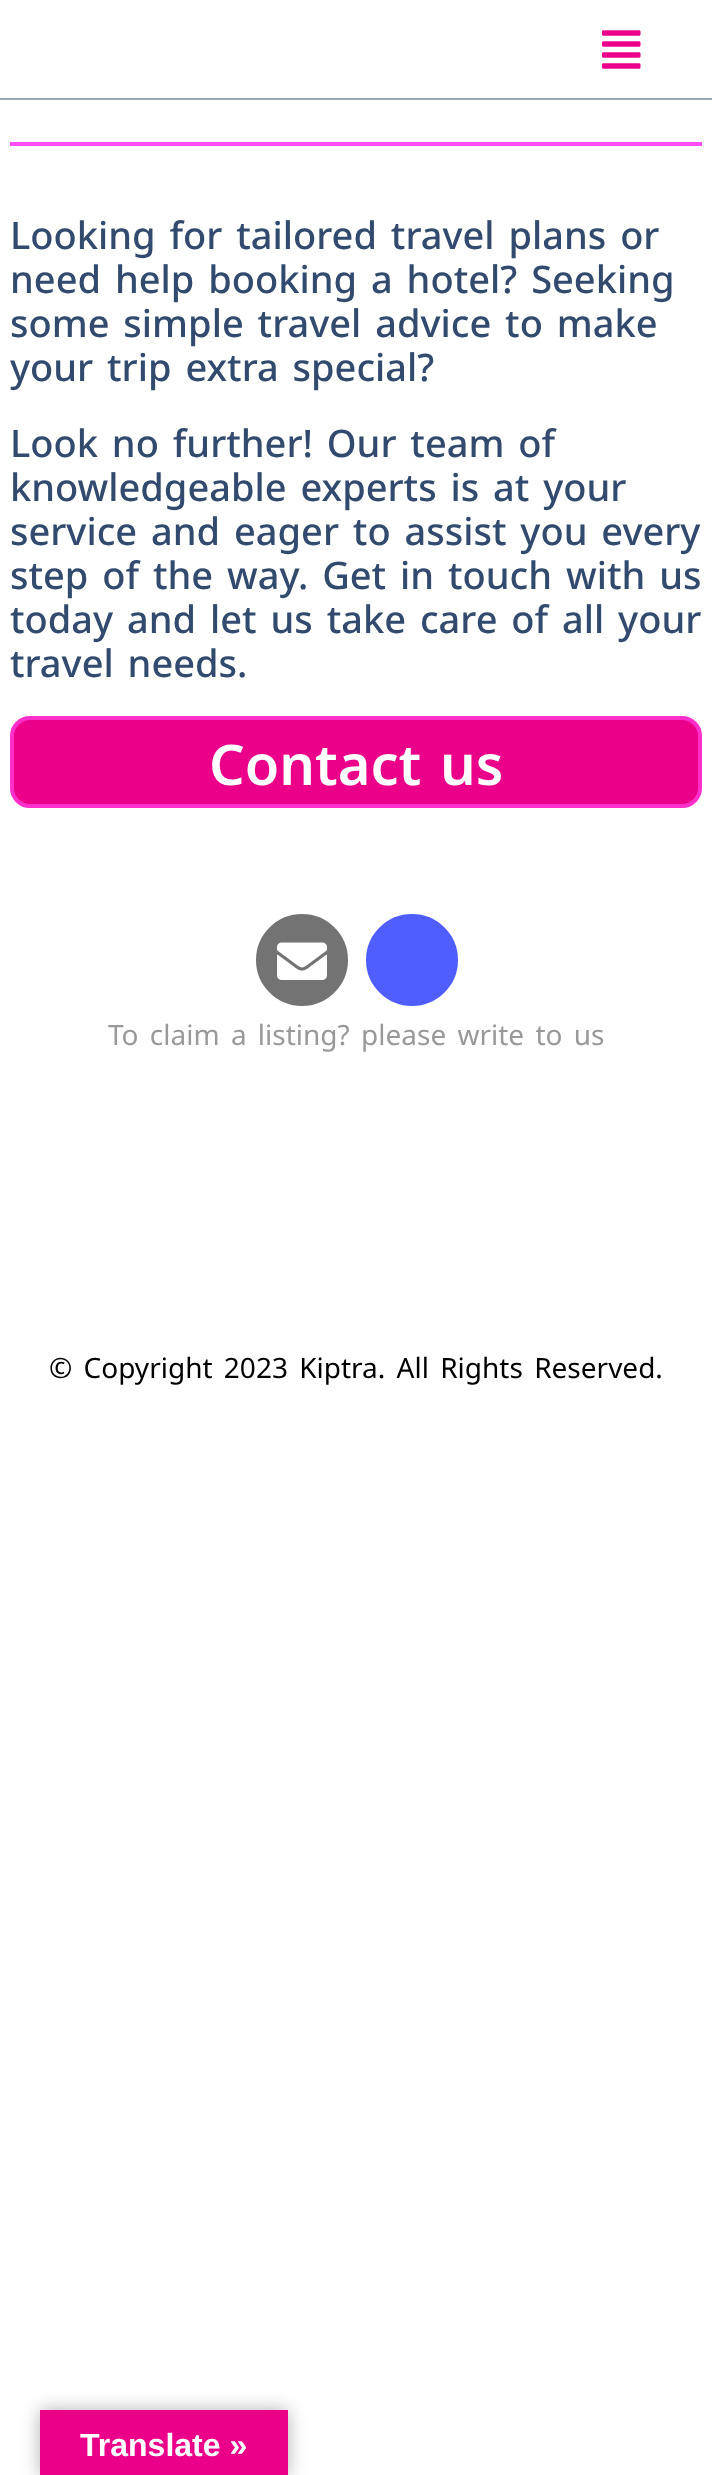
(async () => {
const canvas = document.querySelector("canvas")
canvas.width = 712
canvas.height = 2475
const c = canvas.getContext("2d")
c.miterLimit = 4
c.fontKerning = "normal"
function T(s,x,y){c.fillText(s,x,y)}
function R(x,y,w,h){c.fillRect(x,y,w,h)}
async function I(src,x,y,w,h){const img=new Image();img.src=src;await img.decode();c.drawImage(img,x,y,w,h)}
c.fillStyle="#fff"
R(0,0,712,2475)
c.fillStyle="#9ba6b7"
R(0,98,712,2)
await I("1.png",602,30,39,39)
c.fillStyle="#ff4ef9"
R(10,142,692,4)
c.wordSpacing="4px"
c.font="500 38px Noto Sans"
c.fillStyle="#324a6d"
T("Looking for tailored travel plans or",10,249)
T("need help booking a hotel? Seeking",10,293)
T("some simple travel advice to make",10,337)
T("your trip extra special?",10,381)
T("Look no further! Our team of",10,457)
T("knowledgeable experts is at your",10,501)
T("service and eager to assist you every",10,545)
T("step of the way. Get in touch with us",10,589)
T("today and let us take care of all your",10,633)
T("travel needs.",10,677)
c.fillStyle="#eb0089"
c.beginPath()
c.roundRect(12,718,688,88,18)
c.fill()
c.strokeStyle="#ff2fcc"
c.lineWidth=4
c.stroke()
c.font="600 56px Noto Sans"
c.fillStyle="#fff"
T("Contact us",209,785)
c.fillStyle="#737373"
c.beginPath()
c.arc(302,960,48,0,7)
c.fill()
c.strokeStyle="#fff"
c.stroke()
await I("2.png",277,942,50,38)
c.fillStyle="#515eff"
c.beginPath()
c.arc(412,960,48,0,7)
c.fill()
c.stroke()
c.font="28px Noto Sans"
c.fillStyle="#999"
T("To claim a listing? please write to us",108,1045)
c.fillStyle="#000"
T("© Copyright 2023 Kiptra. All Rights Reserved.",49,1378)
c.fillStyle="#0000004d"
c.filter="blur(9px)"
c.beginPath()
c.rect(40,2410,248,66)
c.fill()
c.filter="none"
c.fillStyle="#eb0089"
R(40,2410,248,65)
c.wordSpacing="0px"
c.font="bold 32px Liberation Sans"
c.fillStyle="#fff"
T("Translate »",80,2456)
})()
